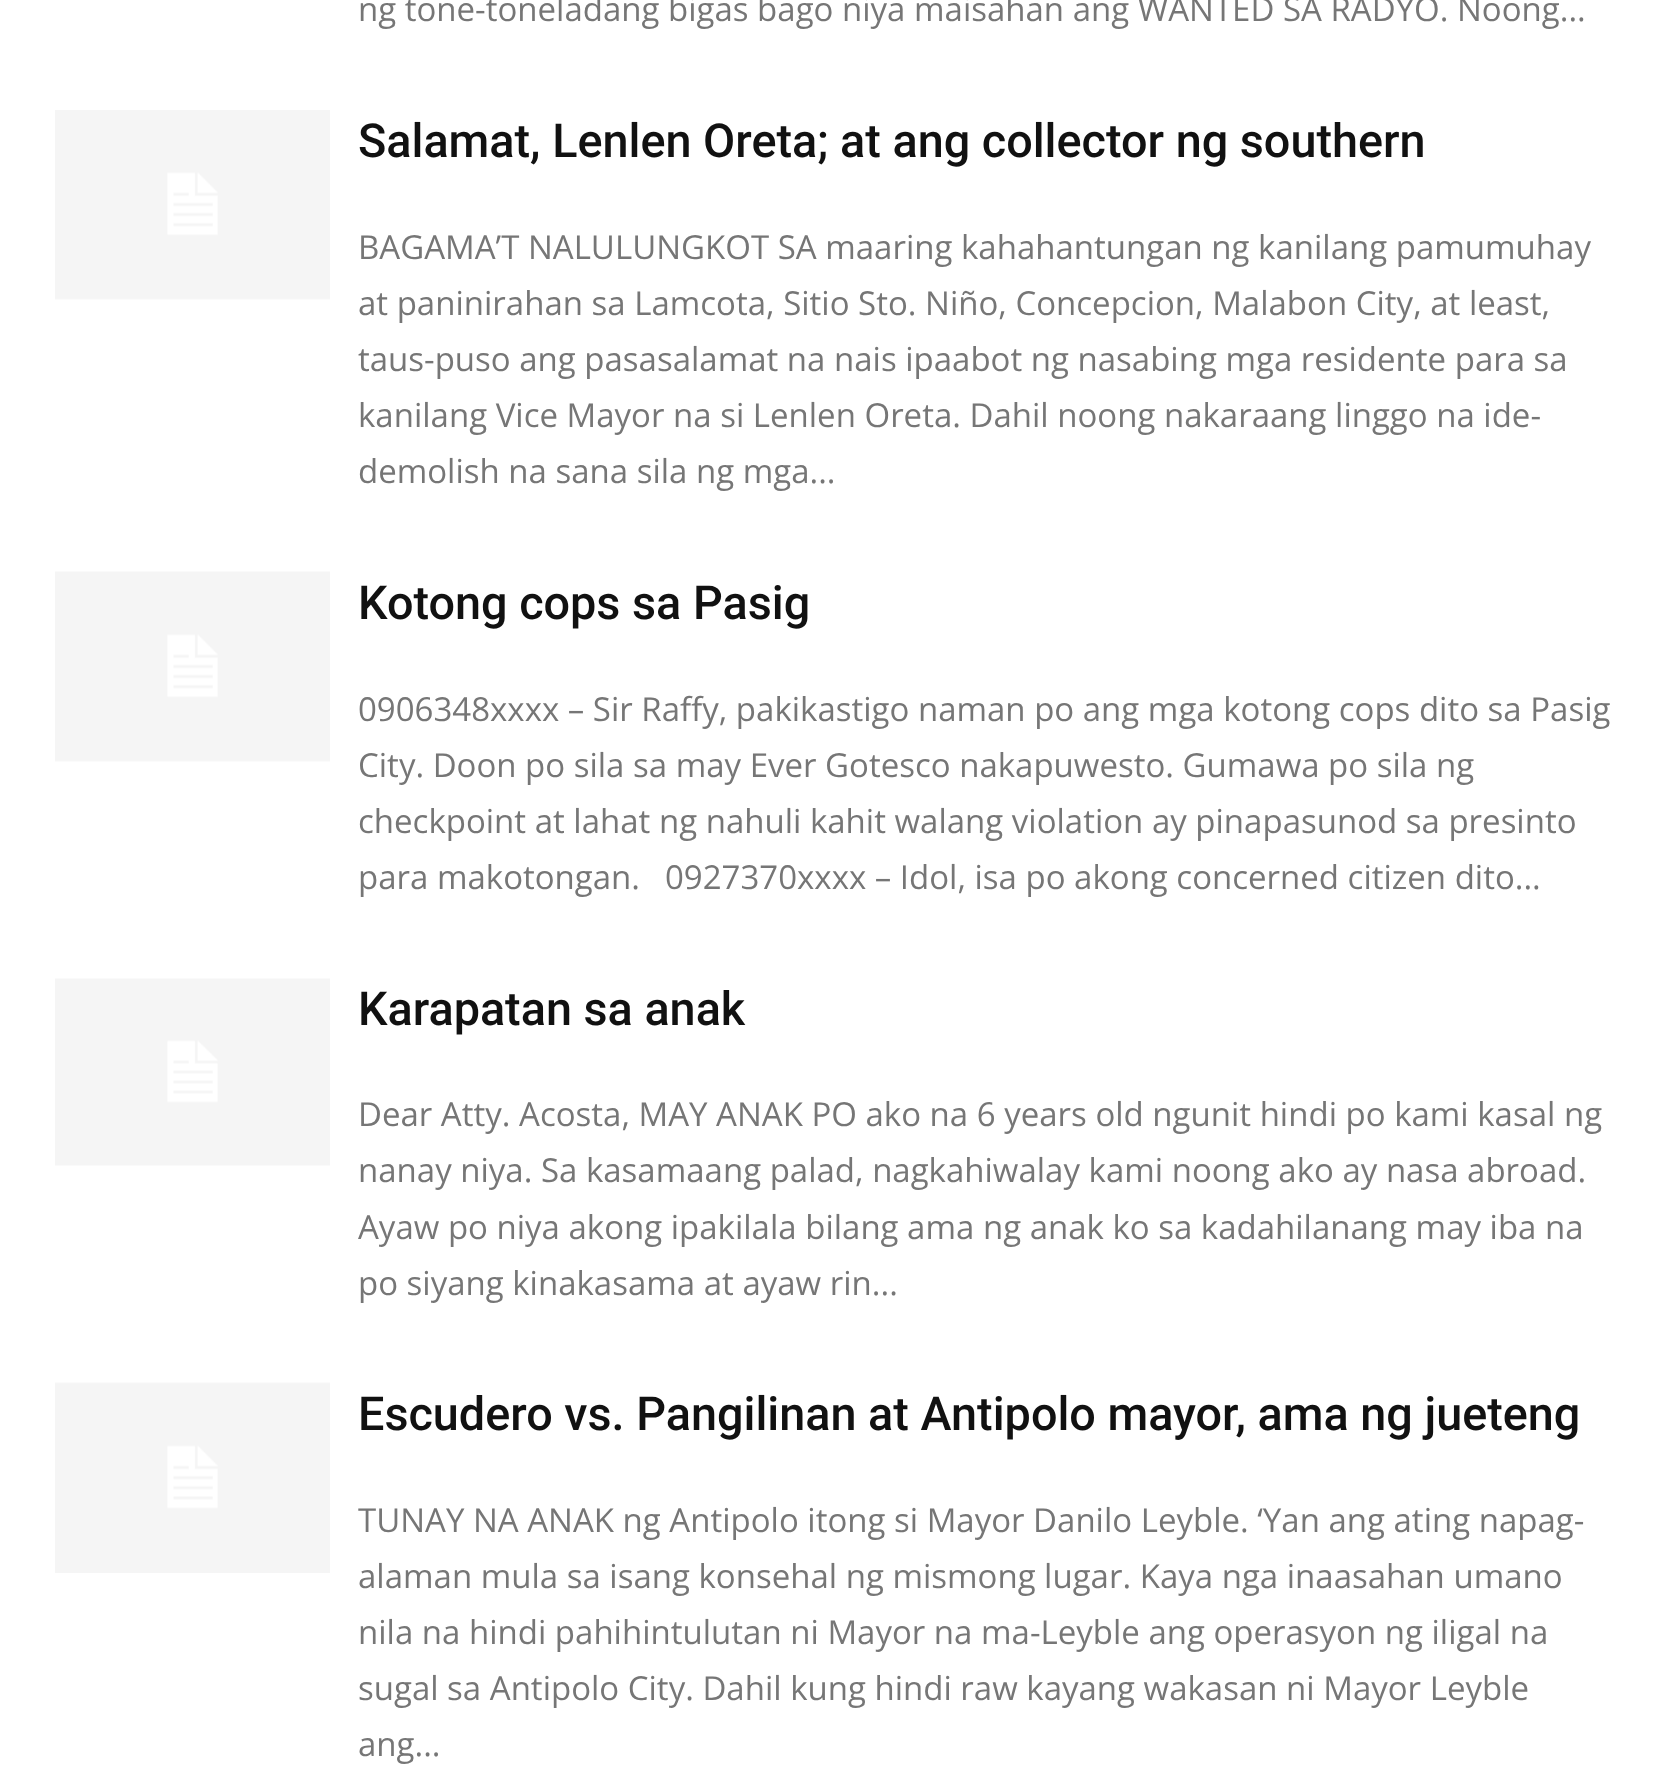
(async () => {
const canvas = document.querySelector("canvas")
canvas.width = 1666
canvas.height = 1767
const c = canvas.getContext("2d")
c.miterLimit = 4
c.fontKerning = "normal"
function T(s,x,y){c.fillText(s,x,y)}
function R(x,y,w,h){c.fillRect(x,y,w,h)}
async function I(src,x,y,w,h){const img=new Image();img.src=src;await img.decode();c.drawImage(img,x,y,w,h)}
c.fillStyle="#fff"
R(0,0,1666,1767)
c.font="33px Open Sans"
c.fillStyle="#767676"
T("ng tone-toneladang bigas bago niya maisahan ang WANTED SA RADYO. Noong...",358,21)
await I("1.png",55,110,275,190)
c.font="500 46.75px Roboto"
c.fillStyle="#111"
T("Salamat, Lenlen Oreta; at ang collector ng southern",358,157)
c.font="33px Open Sans"
c.fillStyle="#767676"
T("BAGAMA’T NALULUNGKOT SA maaring kahahantungan ng kanilang pamumuhay",358,259)
T("at paninirahan sa Lamcota, Sitio Sto. Niño, Concepcion, Malabon City, at least,",358,315)
T("taus-puso ang pasasalamat na nais ipaabot ng nasabing mga residente para sa",358,371)
T("kanilang Vice Mayor na si Lenlen Oreta. Dahil noong nakaraang linggo na ide-",358,427)
T("demolish na sana sila ng mga...",358,483)
await I("2.png",55,571,275,191)
c.font="500 46.75px Roboto"
c.fillStyle="#111"
T("Kotong cops sa Pasig",358,619)
c.font="33px Open Sans"
c.fillStyle="#767676"
T("0906348xxxx – Sir Raffy, pakikastigo naman po ang mga kotong cops dito sa Pasig",358,721)
T("City. Doon po sila sa may Ever Gotesco nakapuwesto. Gumawa po sila ng",358,777)
T("checkpoint at lahat ng nahuli kahit walang violation ay pinapasunod sa presinto",358,833)
T("para makotongan.",358,889)
T("0927370xxxx – Idol, isa po akong concerned citizen dito...",665,889)
await I("3.png",55,978,275,188)
c.font="500 46.75px Roboto"
c.fillStyle="#111"
T("Karapatan sa anak",358,1025)
c.font="33px Open Sans"
c.fillStyle="#767676"
T("Dear Atty. Acosta, MAY ANAK PO ako na 6 years old ngunit hindi po kami kasal ng",358,1126)
T("nanay niya. Sa kasamaang palad, nagkahiwalay kami noong ako ay nasa abroad.",358,1182)
T("Ayaw po niya akong ipakilala bilang ama ng anak ko sa kadahilanang may iba na",358,1239)
T("po siyang kinakasama at ayaw rin...",358,1295)
await I("4.png",55,1382,275,191)
c.font="500 46.75px Roboto"
c.fillStyle="#111"
T("Escudero vs. Pangilinan at Antipolo mayor, ama ng jueteng",358,1430)
c.font="33px Open Sans"
c.fillStyle="#767676"
T("TUNAY NA ANAK ng Antipolo itong si Mayor Danilo Leyble. ‘Yan ang ating napag-",358,1532)
T("alaman mula sa isang konsehal ng mismong lugar. Kaya nga inaasahan umano",358,1588)
T("nila na hindi pahihintulutan ni Mayor na ma-Leyble ang operasyon ng iligal na",358,1644)
T("sugal sa Antipolo City. Dahil kung hindi raw kayang wakasan ni Mayor Leyble",358,1700)
T("ang...",358,1756)
})()
